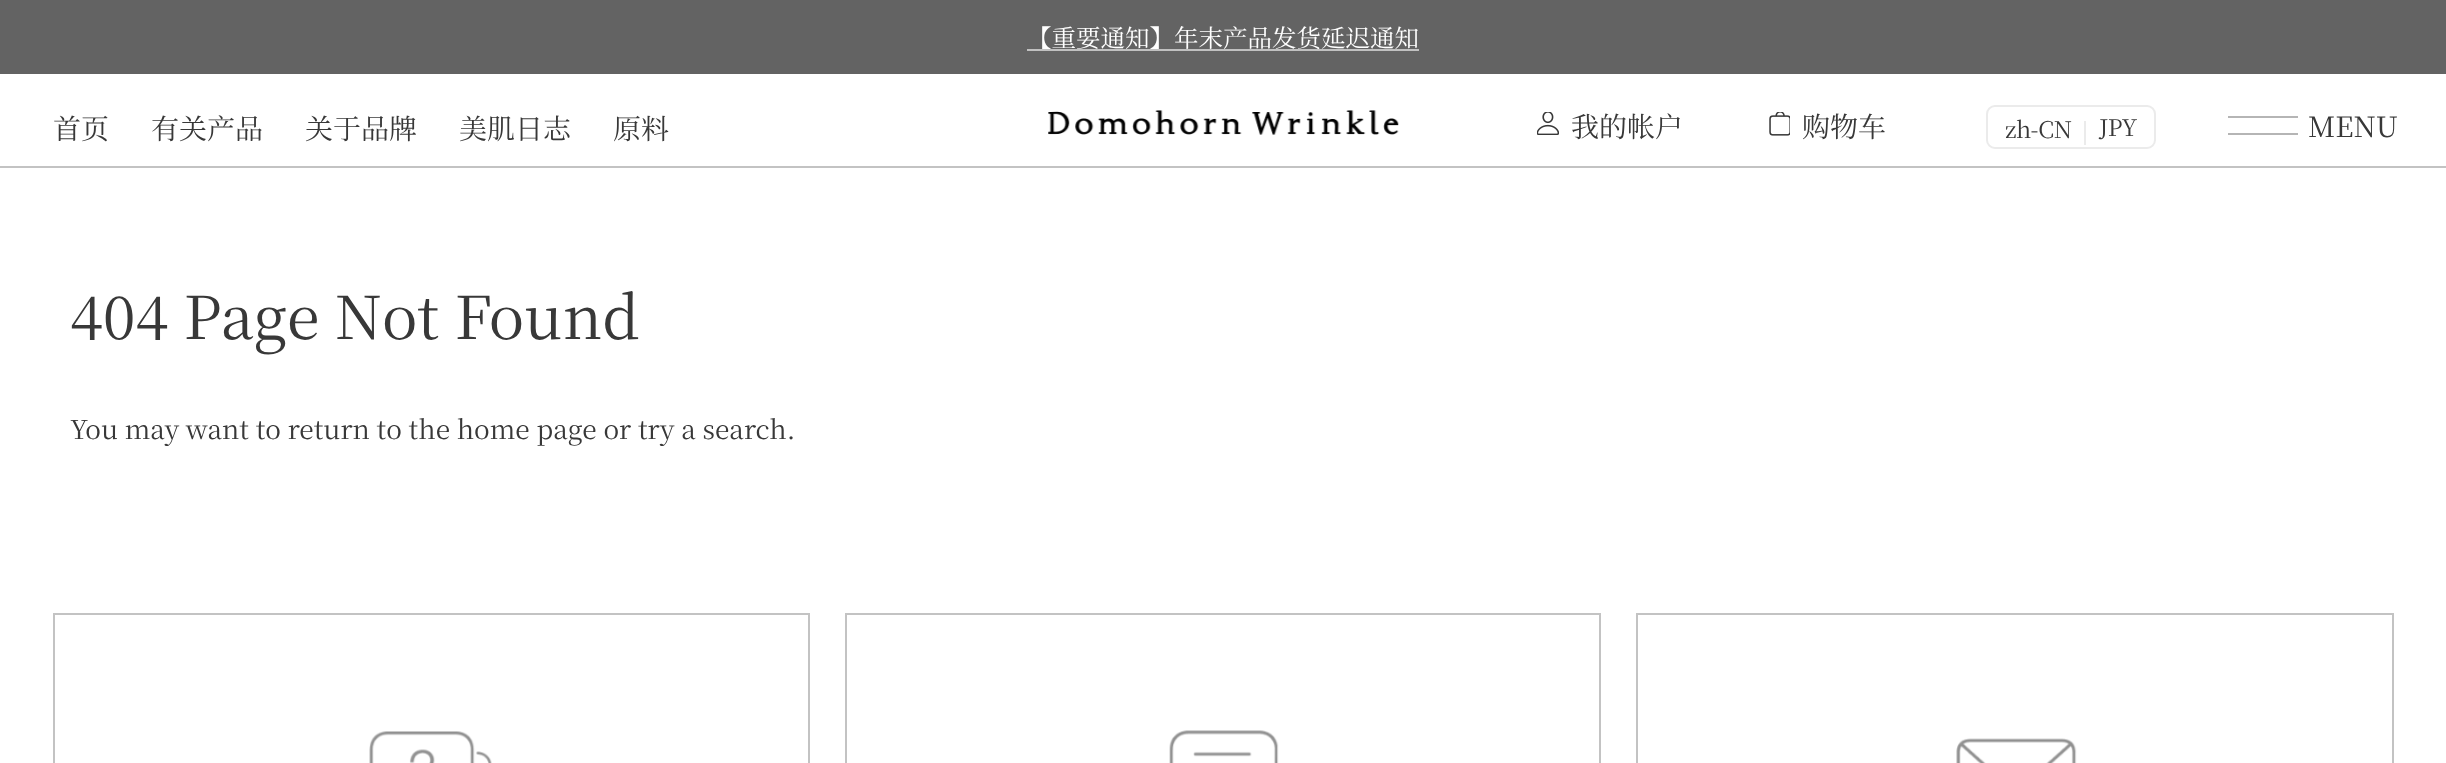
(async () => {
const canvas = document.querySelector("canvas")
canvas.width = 2446
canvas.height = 763
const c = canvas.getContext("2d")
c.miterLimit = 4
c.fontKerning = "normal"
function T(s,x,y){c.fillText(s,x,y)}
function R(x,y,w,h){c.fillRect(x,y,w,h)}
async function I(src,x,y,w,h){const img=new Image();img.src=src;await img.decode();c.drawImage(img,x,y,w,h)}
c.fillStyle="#fff"
R(0,0,2446,763)
c.fillStyle="#636363"
R(0,0,2446,74)
c.fillStyle="#c1c1c1"
R(1027,49,392,2)
c.font="24.5px Noto Serif SC"
c.fillStyle="#fff"
T("【重要通知】年末产品发货延迟通知",1027,47)
c.fillStyle="#c3c3c3"
R(0,166,2446,2)
c.font="28px Noto Serif SC"
c.fillStyle="#383838"
T("首页",53,139)
T("有关产品",151,139)
T("关于品牌",305,139)
T("美肌日志",459,139)
T("原料",613,139)
await I("1.png",1048,110,351,25)
await I("2.png",1537,112,22,23)
T("我的帐户",1571,137)
await I("3.png",1769,112,21,24)
T("购物车",1802,137)
c.beginPath()
c.roundRect(1987,106,168,42,8)
c.strokeStyle="#ebebeb"
c.lineWidth=2
c.stroke()
c.letterSpacing="-0.5px"
c.font="23px Noto Serif SC"
T("zh-CN",2005,138)
c.fillStyle="#ebebeb"
R(2084,121,2,24)
c.fillStyle="#383838"
T("JPY",2099,136)
c.fillStyle="#b5b5b5"
R(2228,116,70,2)
c.letterSpacing="0px"
c.font="28px Noto Serif SC"
c.fillStyle="#383838"
T("MENU",2308,137)
c.fillStyle="#b5b5b5"
R(2228,133,70,2)
c.font="59.5px Noto Serif SC"
c.fillStyle="#383838"
T("404 Page Not Found",70,339)
c.font="26.25px Noto Serif SC"
T("You may want to return to the home page or try a search.",70,439)
c.strokeStyle="#c3c3c3"
c.strokeRect(54,614,755,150)
await I("4.png",369,731,123,32)
c.strokeRect(846,614,754,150)
await I("5.png",1169,730,110,33)
c.strokeRect(1637,614,756,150)
await I("6.png",1956,738,121,25)
})()
